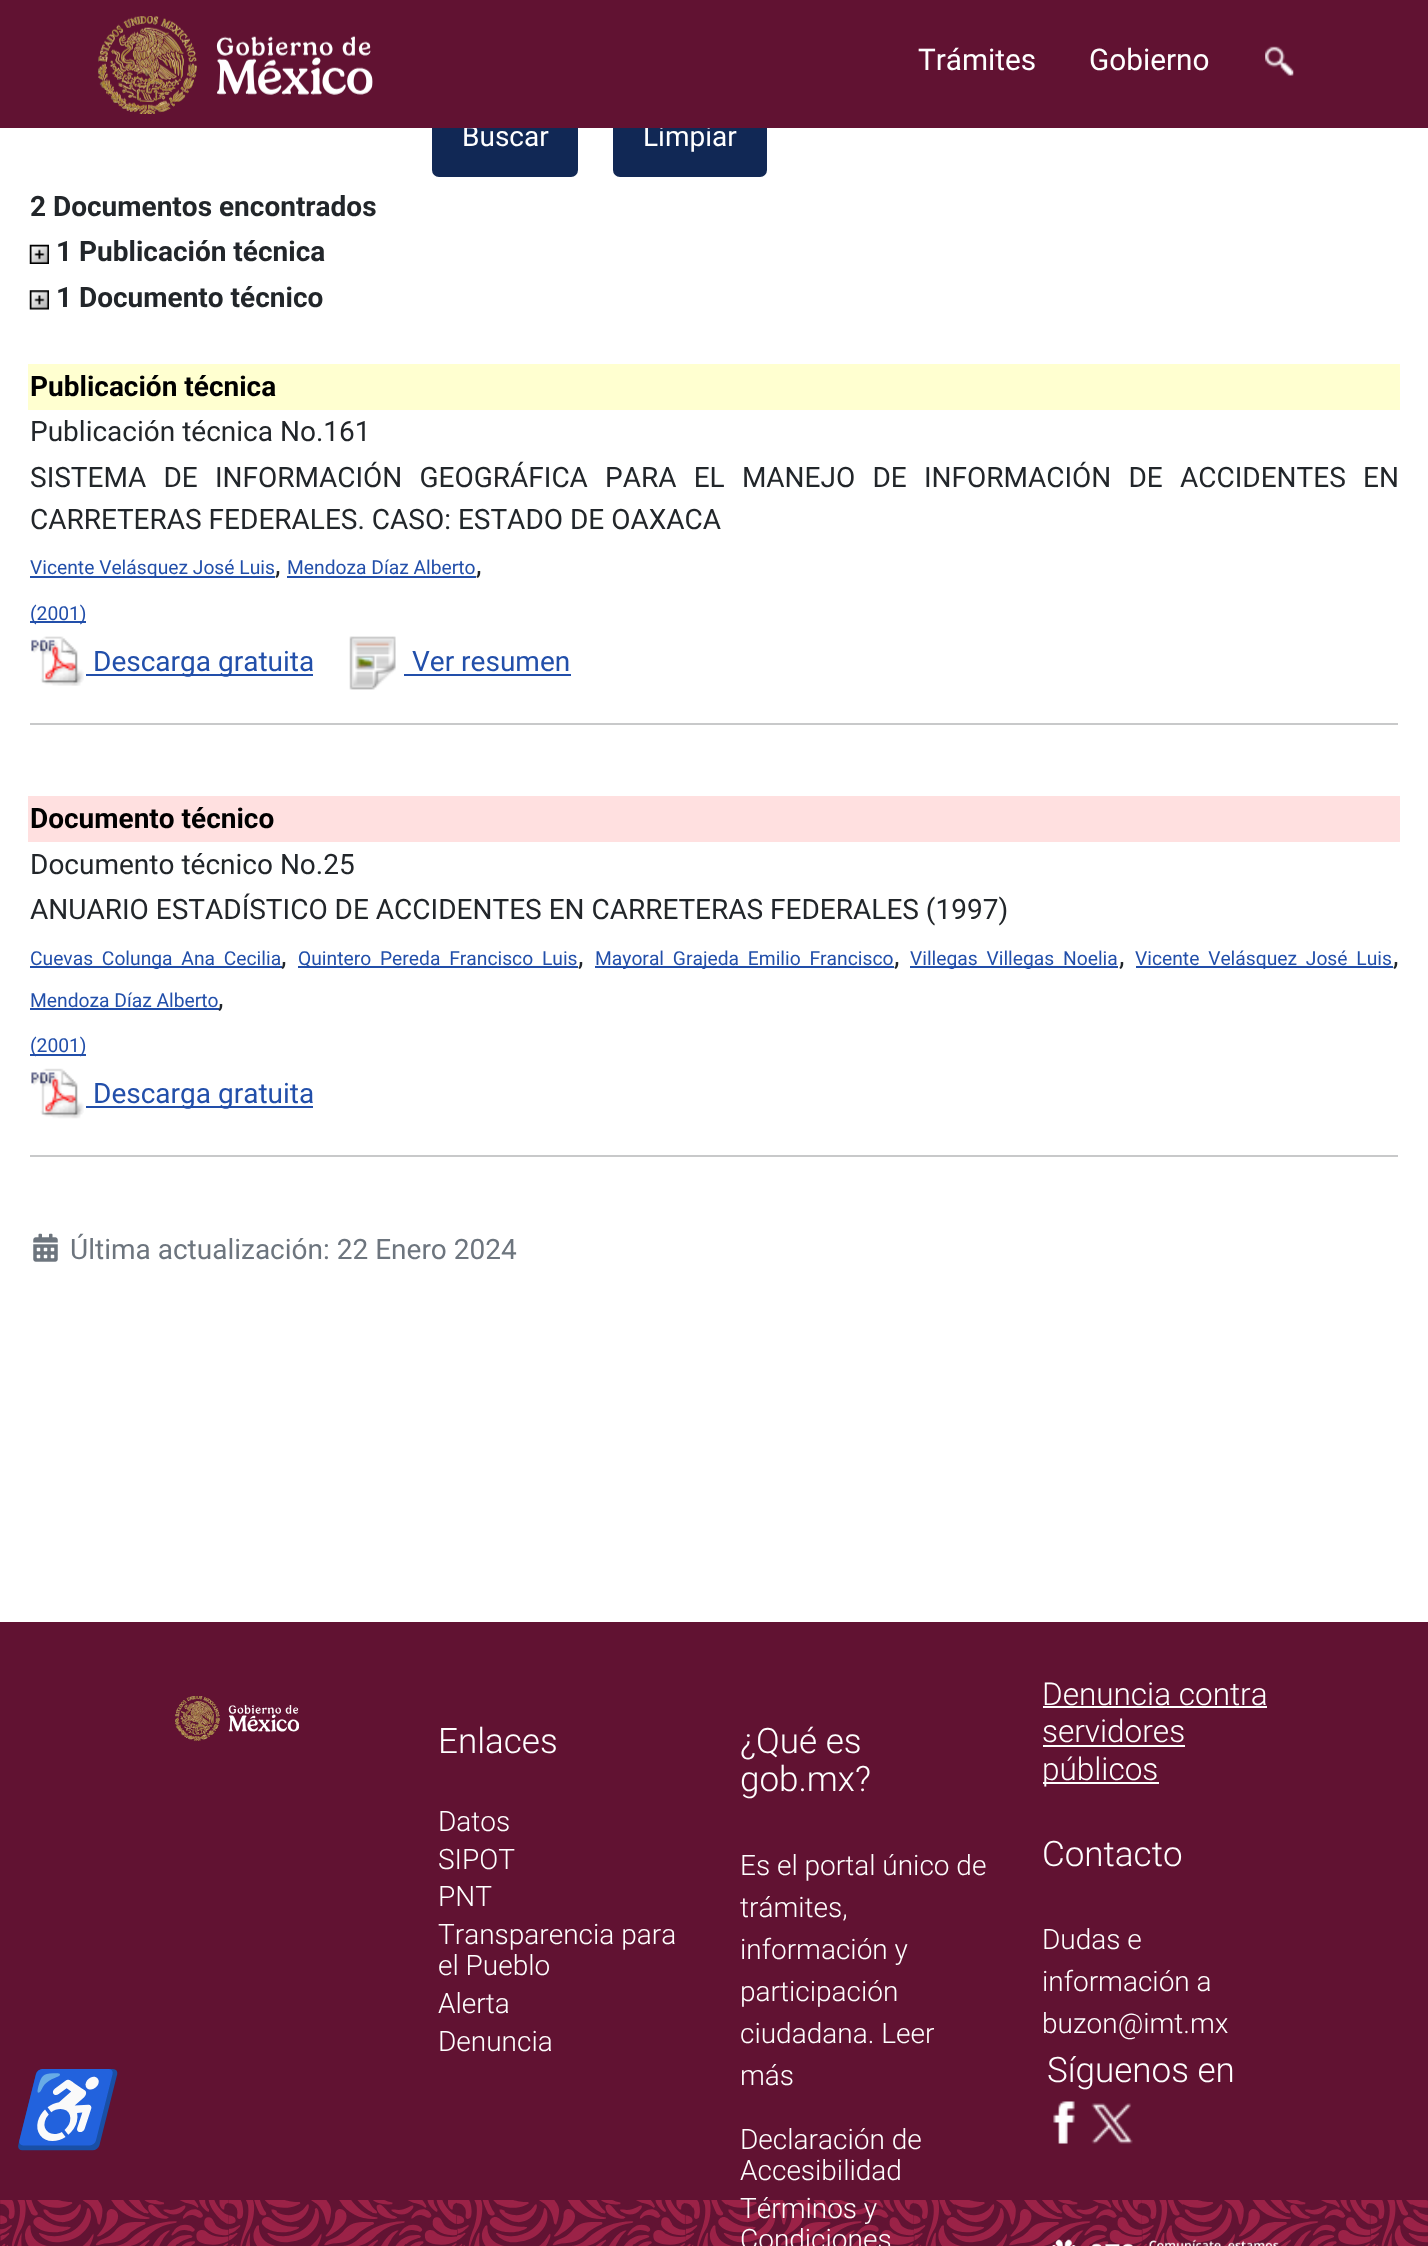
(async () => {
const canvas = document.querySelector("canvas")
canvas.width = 1428
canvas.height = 2246
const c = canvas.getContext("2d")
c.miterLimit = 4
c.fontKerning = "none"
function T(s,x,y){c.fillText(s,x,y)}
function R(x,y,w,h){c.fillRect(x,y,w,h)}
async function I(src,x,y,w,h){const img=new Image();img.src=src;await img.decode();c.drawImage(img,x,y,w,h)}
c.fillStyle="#fff"
R(0,0,1428,2246)
c.fillStyle="#112855"
c.beginPath()
c.roundRect(433,99,144,77,6)
c.fill()
c.strokeStyle="#112855"
c.lineWidth=2
c.stroke()
c.font="28px Roboto"
c.fillStyle="#fff"
T("Buscar",462,146)
c.fillStyle="#112855"
c.beginPath()
c.roundRect(614,99,152,77,6)
c.fill()
c.stroke()
c.fillStyle="#fff"
T("Limpiar",643,146)
c.fillStyle="#611232"
R(0,0,1428,128)
await I("1.png",98,16,275,98)
c.font="29.75px Roboto"
c.fillStyle="#fff"
T("Trámites",918,70)
T("Gobierno",1089,70)
await I("2.png",1265,46,29,30)
c.fillStyle="#611232"
R(0,1622,1428,624)
await I("3.png",175,1696,124,45)
c.font="300 31.5px Roboto"
c.fillStyle="#fff"
T("Denuncia contra",1042,1705)
R(1043,1706,224,2)
T("servidores",1042,1742)
R(1043,1745,142,2)
R(1043,1782,116,2)
T("públicos",1042,1780)
c.font="300 35px Roboto"
T("Contacto",1042,1866)
c.font="300 28px Roboto"
T("Dudas e",1042,1949)
T("información a",1042,1991)
T("buzon@imt.mx",1042,2033)
c.font="300 35px Roboto"
T("Síguenos en",1047,2082)
await I("4.png",1053,2101,22,43)
await I("5.png",1091,2103,42,41)
await I("7.png",0,2200,1428,46)
await I("6.png",1052,2239,227,7)
T("Enlaces",438,1753)
c.font="300 28px Roboto"
T("Datos",438,1831)
T("SIPOT",438,1869)
T("PNT",438,1906)
T("Transparencia para",438,1944)
T("el Pueblo",438,1975)
T("Alerta",438,2013)
T("Denuncia",438,2051)
c.font="300 35px Roboto"
T("¿Qué es",740,1753)
T("gob.mx?",740,1791)
c.font="300 28px Roboto"
T("Es el portal único de",740,1875)
T("trámites,",740,1917)
T("información y",740,1959)
T("participación",740,2001)
T("ciudadana. Leer",740,2043)
T("más",740,2085)
T("Declaración de",740,2149)
T("Accesibilidad",740,2180)
T("Términos y",740,2218)
T("Condiciones",740,2249)
c.font="bold 28px Roboto"
c.fillStyle="#22262a"
T("2 Documentos encontrados",30,216)
await I("8.png",29,244,20,20)
T("1 Publicación técnica",56,261)
await I("9.png",29,290,20,20)
T("1 Documento técnico",56,307)
c.fillStyle="#ffffd0"
R(28,364,1372,46)
c.fillStyle="#000"
T("Publicación técnica",30,396)
c.font="28px Roboto"
c.fillStyle="#22262a"
T("Publicación técnica No.161",30,441)
c.wordSpacing="10.25px"
T("SISTEMA DE INFORMACIÓN GEOGRÁFICA PARA EL MANEJO DE INFORMACIÓN DE ACCIDENTES EN",30,487)
c.wordSpacing="0px"
T("CARRETERAS FEDERALES. CASO: ESTADO DE OAXACA",30,529)
c.fillStyle="#224faa"
R(30,576,245,2)
c.font="19.25px Roboto"
T("Vicente Velásquez José Luis",30,574)
c.font="28px Roboto"
c.fillStyle="#22262a"
T(",",275,574)
c.font="19.25px Roboto"
c.fillStyle="#224faa"
T("Mendoza Díaz Alberto",287,574)
R(287,576,189,2)
c.font="28px Roboto"
c.fillStyle="#22262a"
T(",",476,574)
c.fillStyle="#224faa"
R(30,621,56,2)
c.font="19.25px Roboto"
T("(2001)",30,620)
await I("10.png",31,636,53,50)
R(86,674,227,2)
c.font="28px Roboto"
T("Descarga gratuita",93,671)
await I("11.png",349,636,47,54)
T("Ver resumen",412,671)
R(404,674,167,2)
c.fillStyle="#c8c9ca"
R(30,723,1368,2)
c.fillStyle="#ffe0e0"
R(28,796,1372,46)
c.font="bold 28px Roboto"
c.fillStyle="#000"
T("Documento técnico",30,828)
c.font="28px Roboto"
c.fillStyle="#22262a"
T("Documento técnico No.25",30,874)
T("ANUARIO ESTADÍSTICO DE ACCIDENTES EN CARRETERAS FEDERALES (1997)",30,919)
c.fillStyle="#224faa"
R(30,966,252,2)
c.wordSpacing="4px"
c.font="19.25px Roboto"
T("Cuevas Colunga Ana Cecilia",30,965)
c.wordSpacing="0px"
c.font="28px Roboto"
c.fillStyle="#22262a"
T(",",281,965)
c.fillStyle="#224faa"
R(298,966,280,2)
c.wordSpacing="4px"
c.font="19.25px Roboto"
T("Quintero Pereda Francisco Luis",298,965)
c.wordSpacing="0px"
c.font="28px Roboto"
c.fillStyle="#22262a"
T(",",578,965)
c.fillStyle="#224faa"
R(595,966,299,2)
c.wordSpacing="4px"
c.font="19.25px Roboto"
T("Mayoral Grajeda Emilio Francisco",595,965)
c.wordSpacing="0px"
c.font="28px Roboto"
c.fillStyle="#22262a"
T(",",894,965)
c.fillStyle="#224faa"
R(910,966,208,2)
c.wordSpacing="4px"
c.font="19.25px Roboto"
T("Villegas Villegas Noelia",910,965)
c.wordSpacing="0px"
c.font="28px Roboto"
c.fillStyle="#22262a"
T(",",1119,965)
c.fillStyle="#224faa"
R(1136,966,257,2)
c.wordSpacing="4px"
c.font="19.25px Roboto"
T("Vicente Velásquez José Luis",1135,965)
c.wordSpacing="0px"
c.font="28px Roboto"
c.fillStyle="#22262a"
T(",",1393,965)
c.font="19.25px Roboto"
c.fillStyle="#224faa"
T("Mendoza Díaz Alberto",30,1007)
R(30,1008,189,2)
c.font="28px Roboto"
c.fillStyle="#22262a"
T(",",218,1007)
c.fillStyle="#224faa"
R(30,1054,56,2)
c.font="19.25px Roboto"
T("(2001)",30,1052)
await I("12.png",31,1068,53,51)
R(86,1106,227,2)
c.font="28px Roboto"
T("Descarga gratuita",93,1103)
c.fillStyle="#c8c9ca"
R(30,1155,1368,2)
await I("13.png",33,1233,25,29)
c.fillStyle="#6d757e"
T("Última actualización: 22 Enero 2024",70,1259)
c.letterSpacing="-4px"
c.font="italic 74px Noto Color Emoji"
c.fillStyle="#fff"
T("♿",15,2135)
})()
